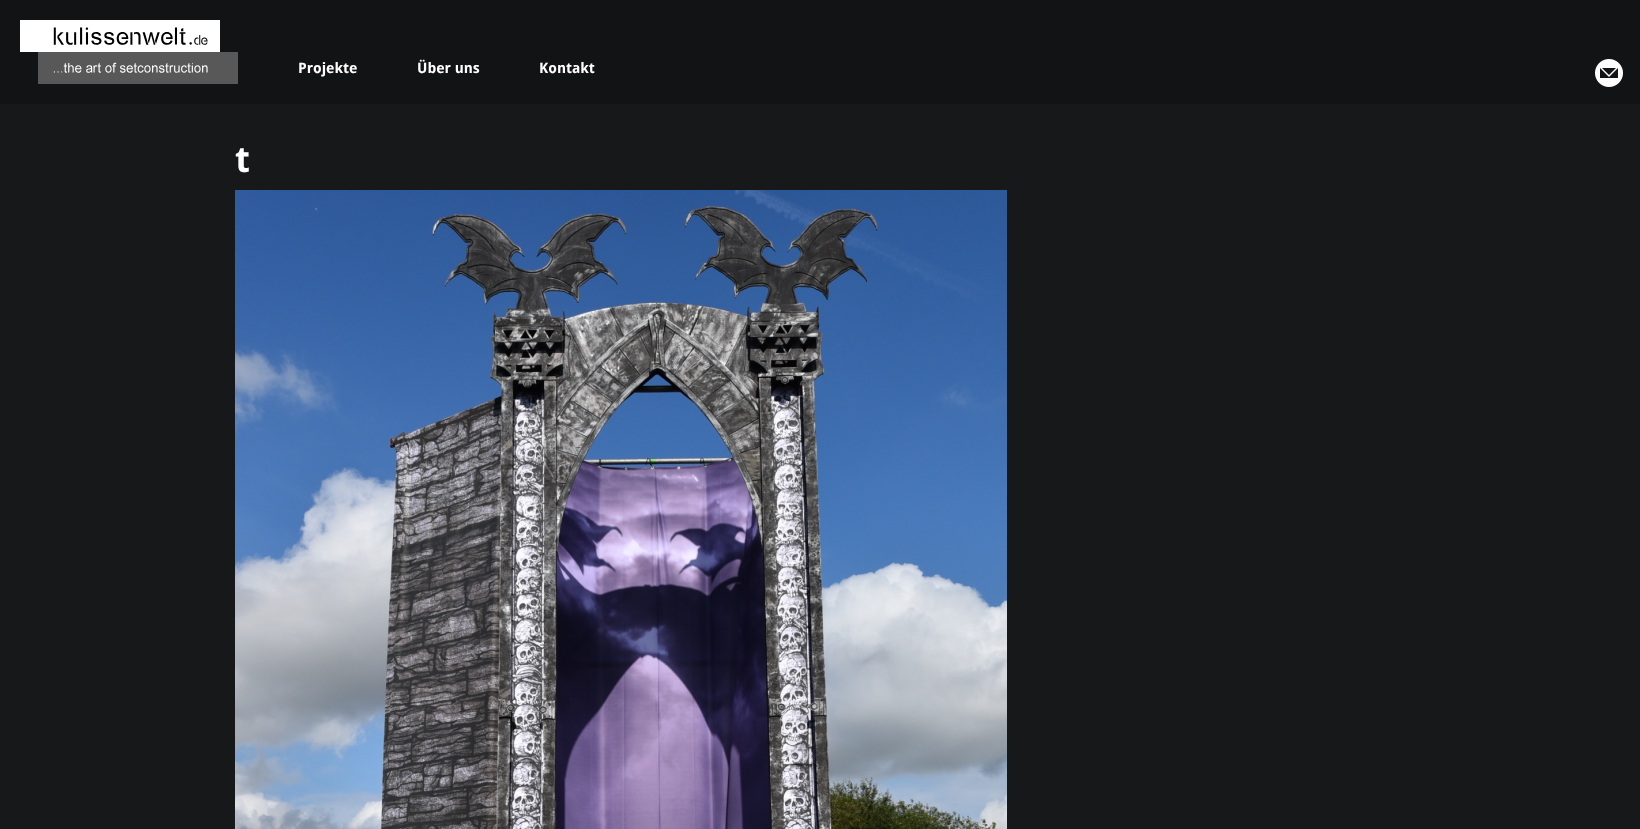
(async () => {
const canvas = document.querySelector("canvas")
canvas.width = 1640
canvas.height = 829
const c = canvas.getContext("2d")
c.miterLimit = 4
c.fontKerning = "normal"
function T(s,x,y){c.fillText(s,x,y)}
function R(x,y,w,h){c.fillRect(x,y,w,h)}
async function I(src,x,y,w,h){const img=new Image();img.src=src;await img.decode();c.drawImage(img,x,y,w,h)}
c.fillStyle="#171819"
R(0,0,1640,829)
c.fillStyle="#121314"
R(0,0,1640,104)
await I("1.png",20,20,218,64)
c.font="bold 14.5px Droid Sans"
c.fillStyle="#fff"
T("Projekte",298,73)
T("Über uns",417,73)
T("Kontakt",539,73)
await I("2.png",1595,59,28,28)
c.font="bold 36px Droid Sans"
T("t",235,172)
await I("3.png",235,190,772,639)
})()
